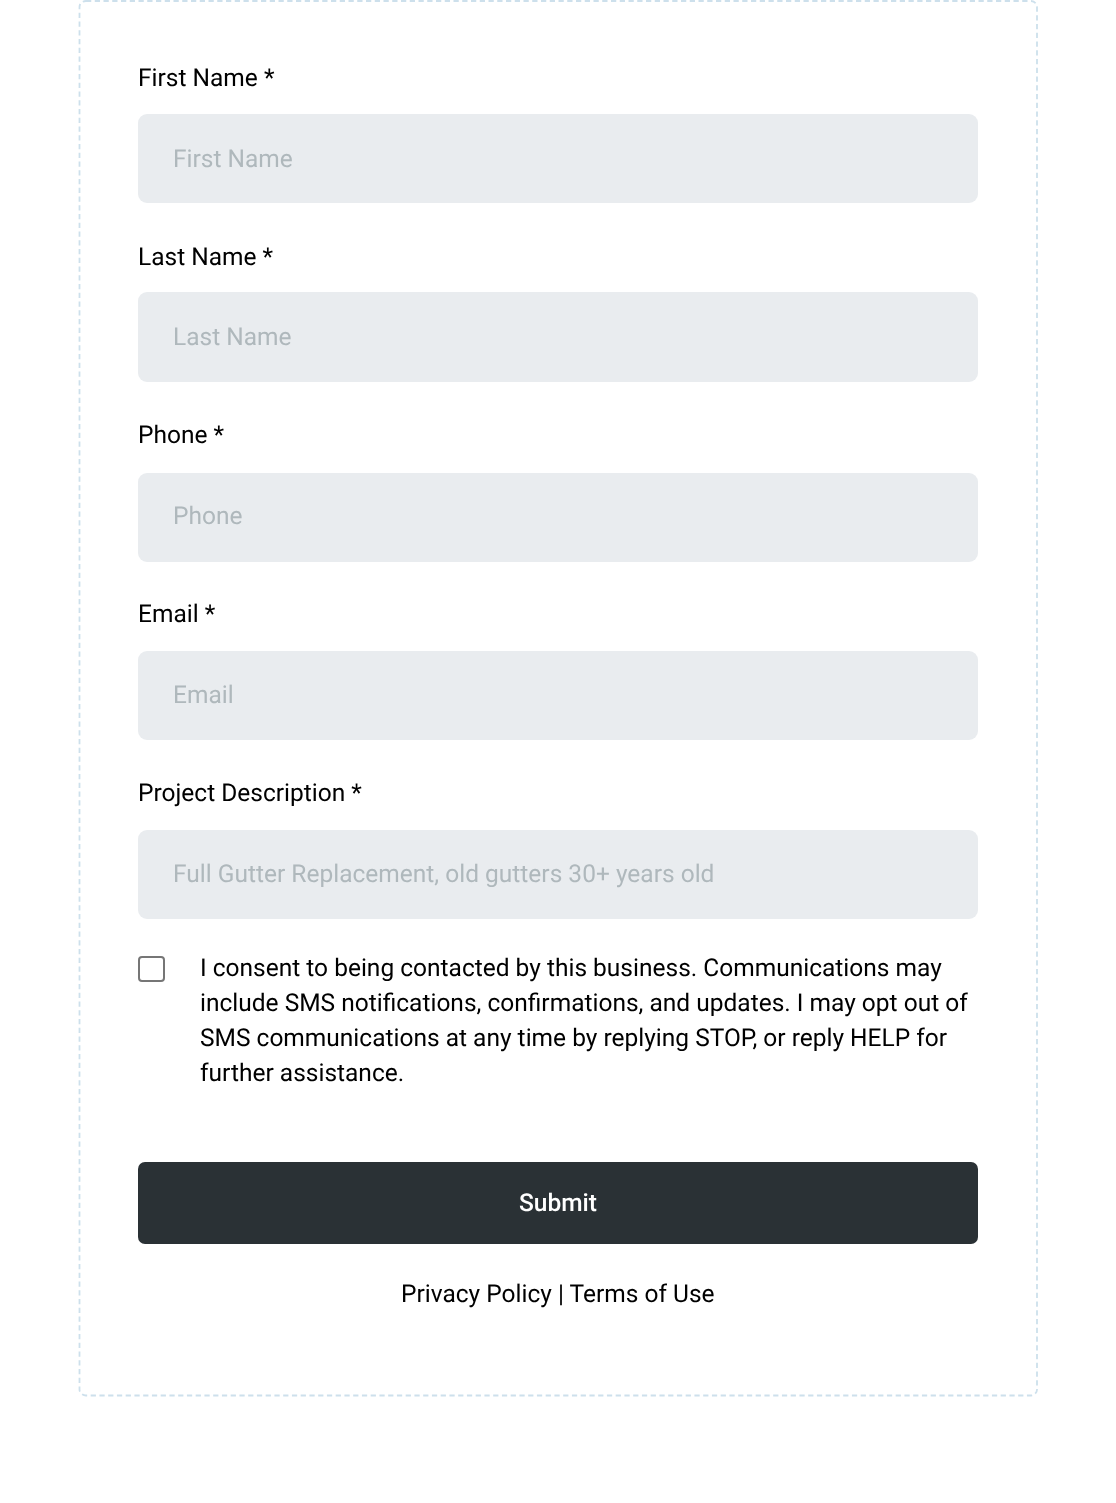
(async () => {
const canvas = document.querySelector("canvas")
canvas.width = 1116
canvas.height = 1503
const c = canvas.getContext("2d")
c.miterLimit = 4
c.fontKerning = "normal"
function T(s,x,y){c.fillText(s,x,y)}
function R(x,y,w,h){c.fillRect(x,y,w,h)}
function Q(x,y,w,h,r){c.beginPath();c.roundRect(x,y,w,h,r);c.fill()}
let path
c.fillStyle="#fff"
R(0,0,1116,1503)
path = new Path2D("M86 1h945c3 0 6 2.5 6 6v1382.5c0 3.5-3 6-6 6h-945c-3.5 0-6.5-2.5-6.5-6v-1382.5c0-3.5 3-6 6.5-6z")
c.strokeStyle="#cde0ec"
c.lineWidth=1.8
c.setLineDash([5.25,3.5])
c.stroke(path)
c.font="24.5px Roboto"
c.fillStyle="#000"
T("First Name *",138,86)
c.fillStyle="#e9ecef"
Q(138,114,840,89,9)
c.fillStyle="#afb8bc"
T("First Name",173,167)
c.fillStyle="#000"
T("Last Name *",138,265)
c.fillStyle="#e9ecef"
Q(138,292,840,90,9)
c.fillStyle="#afb8bc"
T("Last Name",173,345)
c.fillStyle="#000"
T("Phone *",138,443)
c.fillStyle="#e9ecef"
Q(138,473,840,89,9)
c.fillStyle="#afb8bc"
T("Phone",173,524)
c.fillStyle="#000"
T("Email *",138,622)
c.fillStyle="#e9ecef"
Q(138,651,840,89,9)
c.fillStyle="#afb8bc"
T("Email",173,703)
c.fillStyle="#000"
T("Project Description *",138,801)
c.fillStyle="#e9ecef"
Q(138,830,840,89,9)
c.fillStyle="#afb8bc"
T("Full Gutter Replacement, old gutters 30+ years old",173,882)
c.beginPath()
c.roundRect(139,957,25,24,3)
c.strokeStyle="#767676"
c.lineWidth=2
c.setLineDash([])
c.stroke()
c.fillStyle="#000"
T("I consent to being contacted by this business. Communications may",200,976)
T("include SMS notifications, confirmations, and updates. I may opt out of",200,1011)
T("SMS communications at any time by replying STOP, or reply HELP for",200,1046)
T("further assistance.",200,1081)
c.fillStyle="#2a3135"
Q(138,1162,840,82,7)
c.font="500 24.5px Roboto"
c.fillStyle="#fff"
T("Submit",519,1211)
c.font="24.5px Roboto"
c.fillStyle="#000"
T("Privacy Policy | Terms of Use",401,1302)
})()
